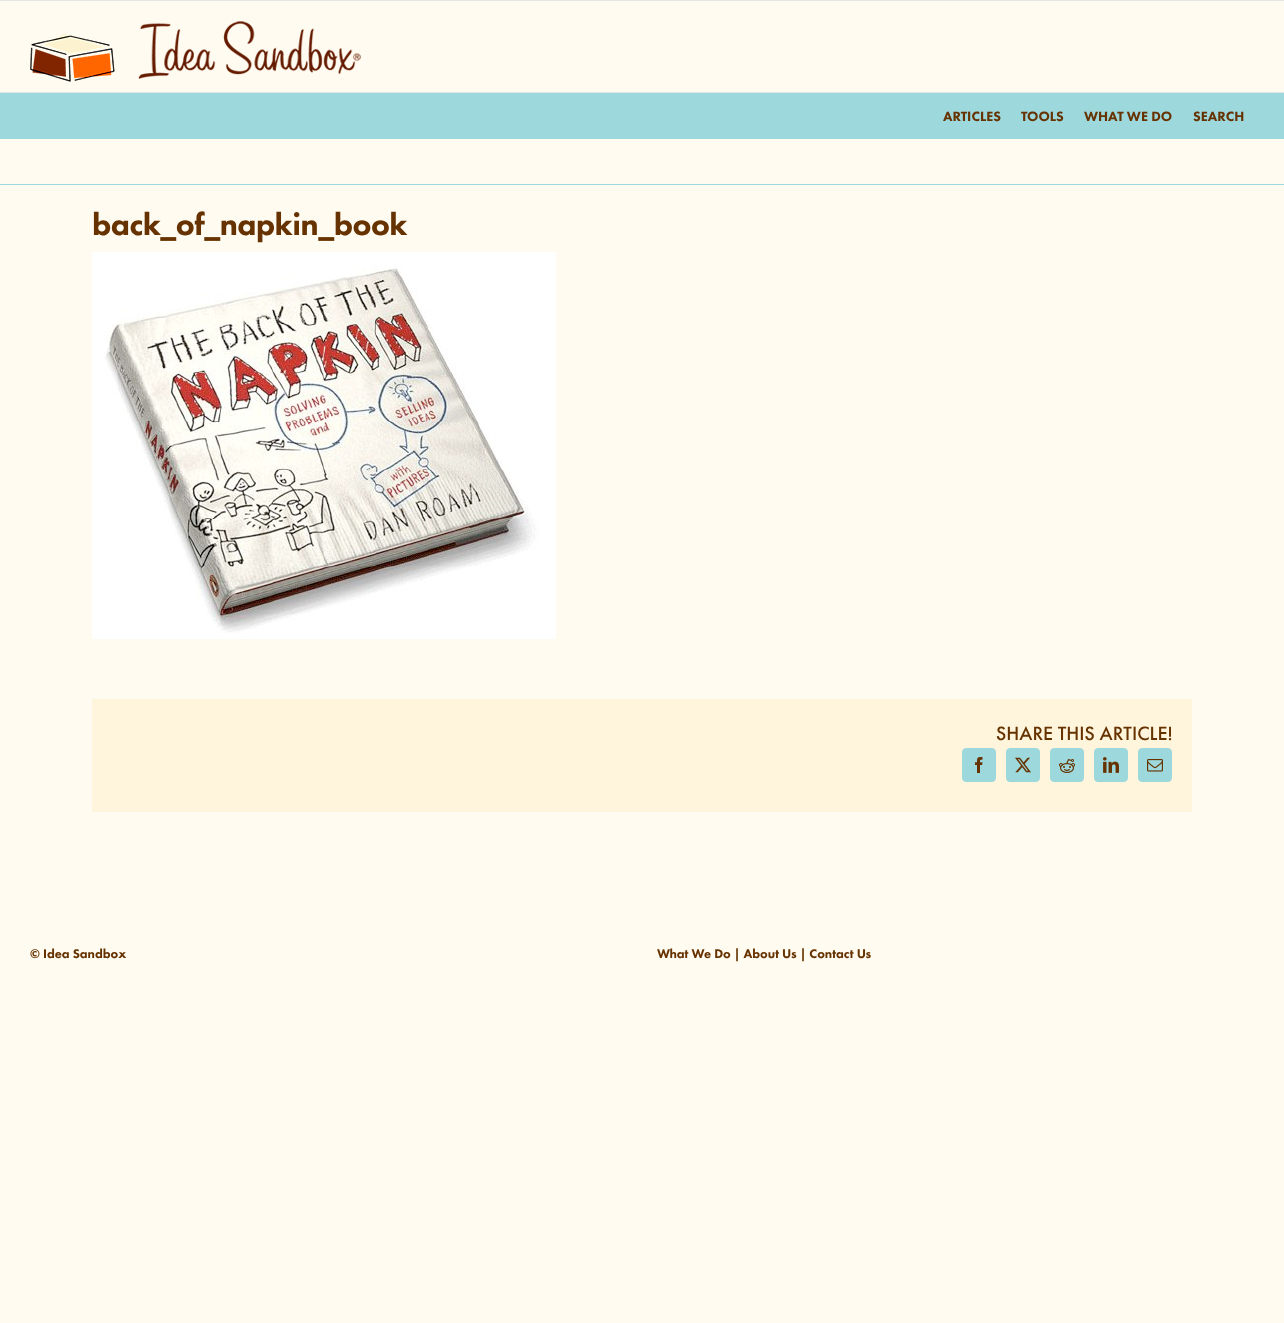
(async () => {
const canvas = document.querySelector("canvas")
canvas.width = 1284
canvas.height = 1323
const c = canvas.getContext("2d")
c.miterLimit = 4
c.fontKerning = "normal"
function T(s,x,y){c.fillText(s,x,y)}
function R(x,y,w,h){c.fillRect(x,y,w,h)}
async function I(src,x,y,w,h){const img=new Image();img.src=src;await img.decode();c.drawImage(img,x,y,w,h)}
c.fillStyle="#fffbf0"
R(0,0,1284,1323)
c.fillStyle="#9dd8dc"
R(0,93,1284,46)
R(0,184,1284,1)
c.fillStyle="#e5e5e5"
R(0,0,1284,1)
R(0,92,1284,1)
await I("1.png",30,21,331,61)
c.font="900 14px Futura PT"
c.fillStyle="#630"
T("ARTICLES",943,121)
T("TOOLS",1021,121)
T("WHAT WE DO",1084,121)
T("SEARCH",1193,121)
c.letterSpacing="-0.5px"
c.font="900 32px Futura PT"
T("back_of_napkin_book",92,235)
await I("2.png",92,252,464,387)
c.fillStyle="#fff5dc"
R(92,699,1100,113)
c.letterSpacing="0px"
c.font="500 20px Futura PT"
c.fillStyle="#630"
T("SHARE THIS ARTICLE!",996,740)
c.fillStyle="#9dd8dc"
c.beginPath()
c.roundRect(962.5,748.5,33,33,3.5)
c.fill()
c.strokeStyle="#9dd8dc"
c.stroke()
await I("3.png",975,757,8,16)
c.beginPath()
c.roundRect(1006.5,748.5,33,33,3.5)
c.fill()
c.stroke()
await I("4.png",1015,757,16,16)
c.beginPath()
c.roundRect(1050.5,748.5,33,33,3.5)
c.fill()
c.stroke()
await I("5.png",1059,759,16,14)
c.beginPath()
c.roundRect(1094.5,748.5,33,33,3.5)
c.fill()
c.stroke()
await I("6.png",1103,757,16,16)
c.beginPath()
c.roundRect(1138.5,748.5,33,33,3.5)
c.fill()
c.stroke()
await I("7.png",1147,759,16,13)
c.font="900 13px Futura PT"
c.fillStyle="#630"
T("© Idea Sandbox",30,958)
T("What We Do | About Us | Contact Us",657,958)
})()
